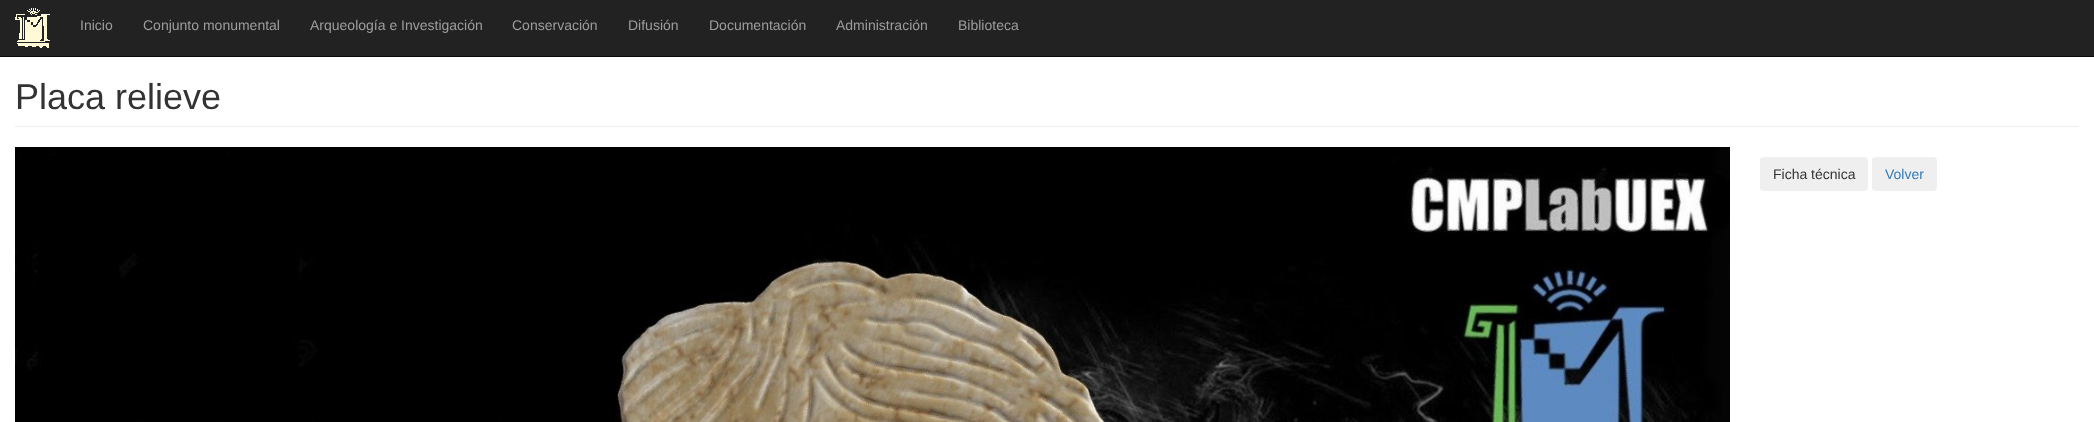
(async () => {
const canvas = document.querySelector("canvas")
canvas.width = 2094
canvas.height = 422
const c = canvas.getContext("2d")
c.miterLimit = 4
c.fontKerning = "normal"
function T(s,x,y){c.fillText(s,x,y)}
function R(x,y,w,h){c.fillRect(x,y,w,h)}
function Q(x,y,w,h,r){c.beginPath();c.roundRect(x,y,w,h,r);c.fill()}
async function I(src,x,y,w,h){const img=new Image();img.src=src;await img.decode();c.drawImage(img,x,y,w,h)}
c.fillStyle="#fff"
R(0,0,2094,422)
c.fillStyle="#222"
R(0,0,2094,56)
c.fillStyle="#080808"
R(0,56,2094,1)
await I("1.png",15,8,35,40)
c.font="14px Liberation Sans"
c.fillStyle="#9d9d9d"
T("Inicio",80,30)
T("Conjunto monumental",143,30)
T("Arqueología e Investigación",310,30)
T("Conservación",512,30)
T("Difusión",628,30)
T("Documentación",709,30)
T("Administración",836,30)
T("Biblioteca",958,30)
c.fillStyle="#eee"
R(15,126,2064,1)
c.font="36px Liberation Sans"
c.fillStyle="#333"
T("Placa relieve",15,109)
await I("2.png",15,147,1715,275)
c.fillStyle="#efefef"
Q(1760,157,108,34,4)
c.font="14px Liberation Sans"
c.fillStyle="#333"
T("Ficha técnica",1773,179)
c.fillStyle="#efefef"
Q(1872,157,65,34,4)
c.fillStyle="#337ab7"
T("Volver",1885,179)
})()
